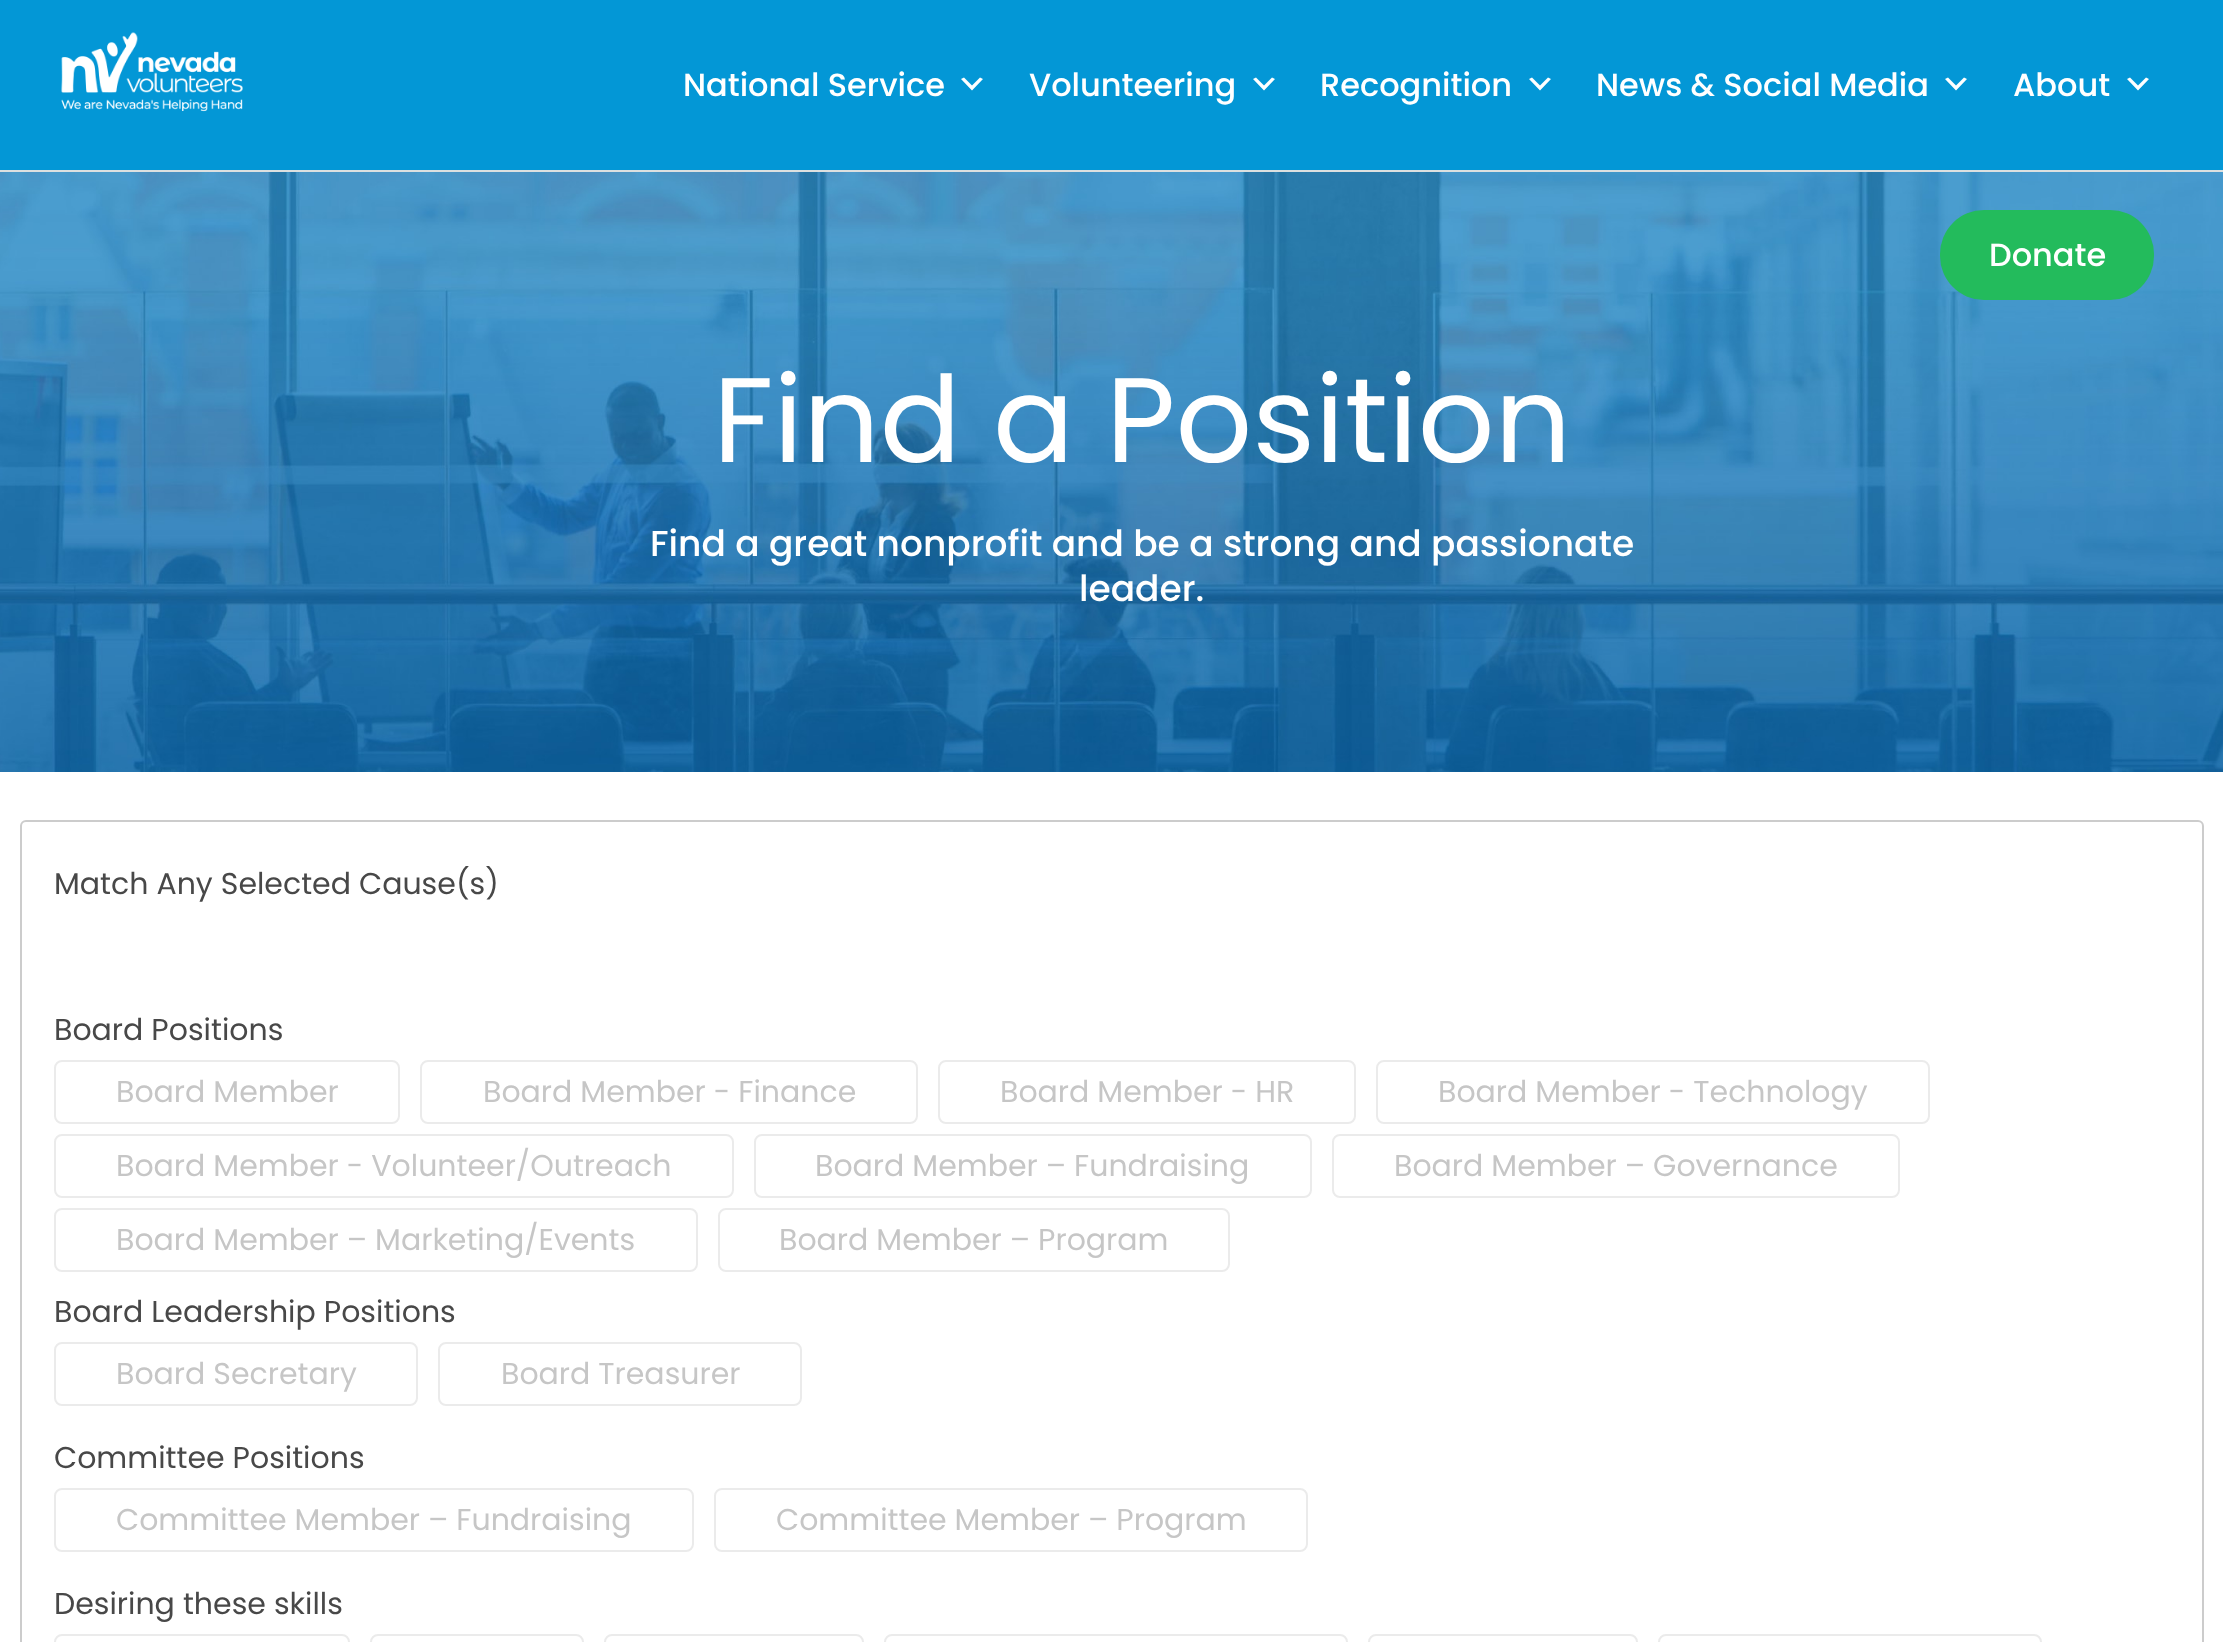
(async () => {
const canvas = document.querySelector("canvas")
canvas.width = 2223
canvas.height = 1642
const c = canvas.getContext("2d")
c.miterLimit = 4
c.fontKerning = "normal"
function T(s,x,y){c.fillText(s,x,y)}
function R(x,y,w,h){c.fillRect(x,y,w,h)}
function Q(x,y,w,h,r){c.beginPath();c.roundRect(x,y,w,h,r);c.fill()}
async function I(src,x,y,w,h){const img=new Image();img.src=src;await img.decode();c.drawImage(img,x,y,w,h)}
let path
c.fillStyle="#fff"
R(0,0,2223,1642)
c.fillStyle="#dce0e0"
R(0,170,2223,2)
c.fillStyle="#0397d6"
R(0,0,2223,170)
await I("1.png",61,32,182,80)
c.font="500 32px Poppins"
c.fillStyle="#fff"
T("National Service",683,96)
path = new Path2D("M964 77.5l8 8l8-8l3 1.5l-11 11.5l-11-11.5z")
c.fill(path)
T("Volunteering",1029,96)
path = new Path2D("M1256 77.5l8 8l8-8l3 1.5l-11 11.5l-11-11.5z")
c.fill(path)
T("Recognition",1320,96)
path = new Path2D("M1532 77.5l8 8l8-8l3 1.5l-11 11.5l-11-11.5z")
c.fill(path)
T("News & Social Media",1596,96)
path = new Path2D("M1948 77.5l8 8l8-8l3 1.5l-11 11.5l-11-11.5z")
c.fill(path)
T("About",2013,96)
path = new Path2D("M2130 77.5l8 8l8-8l3 1.5l-11 11.5l-11-11.5z")
c.fill(path)
await I("2.png",0,172,2223,600)
c.fillStyle="#23bb5c"
Q(1940,210,214,90,44)
c.fillStyle="#fff"
T("Donate",1989,266)
c.font="120px Poppins"
T("Find a Position",713,462)
c.font="500 36px Poppins"
T("Find a great nonprofit and be a strong and passionate",650,556)
T("leader.",1079,601)
c.beginPath()
c.roundRect(21,821,2182,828,5)
c.strokeStyle="#ccc"
c.lineWidth=2
c.stroke()
c.font="30px Poppins"
c.fillStyle="#484848"
T("Match Any Selected Cause(s)",54,894)
T("Board Positions",54,1040)
c.beginPath()
c.roundRect(55,1061,344,62,7)
c.strokeStyle="#ebebeb"
c.stroke()
c.fillStyle="#c6c6c6"
T("Board Member",116,1102)
c.beginPath()
c.roundRect(421,1061,496,62,7)
c.stroke()
T("Board Member - Finance",483,1102)
c.beginPath()
c.roundRect(939,1061,416,62,7)
c.stroke()
T("Board Member - HR",1000,1102)
c.beginPath()
c.roundRect(1377,1061,552,62,7)
c.stroke()
T("Board Member - Technology",1438,1102)
c.beginPath()
c.roundRect(55,1135,678,62,7)
c.stroke()
T("Board Member - Volunteer/Outreach",116,1176)
c.beginPath()
c.roundRect(755,1135,556,62,7)
c.stroke()
T("Board Member – Fundraising",815,1176)
c.beginPath()
c.roundRect(1333,1135,566,62,7)
c.stroke()
T("Board Member – Governance",1394,1176)
c.beginPath()
c.roundRect(55,1209,642,62,7)
c.stroke()
T("Board Member – Marketing/Events",116,1250)
c.beginPath()
c.roundRect(719,1209,510,62,7)
c.stroke()
T("Board Member – Program",779,1250)
c.fillStyle="#484848"
T("Board Leadership Positions",54,1322)
c.beginPath()
c.roundRect(55,1343,362,62,7)
c.stroke()
c.fillStyle="#c6c6c6"
T("Board Secretary",116,1384)
c.beginPath()
c.roundRect(439,1343,362,62,7)
c.stroke()
T("Board Treasurer",501,1384)
c.fillStyle="#484848"
T("Committee Positions",54,1468)
c.beginPath()
c.roundRect(55,1489,638,62,7)
c.stroke()
c.fillStyle="#c6c6c6"
T("Committee Member – Fundraising",116,1530)
c.beginPath()
c.roundRect(715,1489,592,62,7)
c.stroke()
T("Committee Member – Program",776,1530)
c.fillStyle="#484848"
T("Desiring these skills",54,1614)
c.beginPath()
c.roundRect(55,1635,294,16,7)
c.stroke()
c.beginPath()
c.roundRect(371,1635,212,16,7)
c.stroke()
c.beginPath()
c.roundRect(605,1635,258,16,7)
c.stroke()
c.beginPath()
c.roundRect(885,1635,462,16,7)
c.stroke()
c.beginPath()
c.roundRect(1369,1635,268,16,7)
c.stroke()
c.beginPath()
c.roundRect(1659,1635,382,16,7)
c.stroke()
})()
